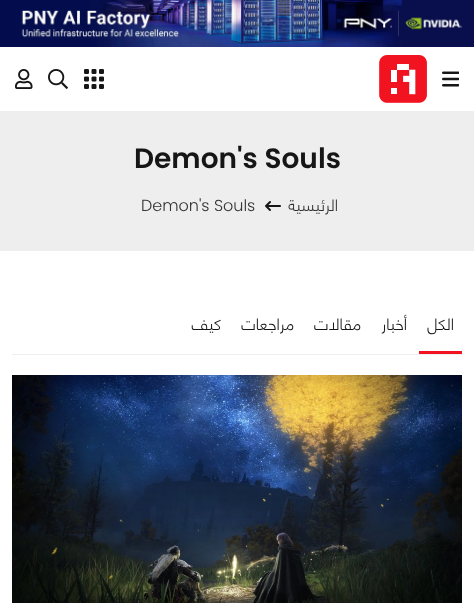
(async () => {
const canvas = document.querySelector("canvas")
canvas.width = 474
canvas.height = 603
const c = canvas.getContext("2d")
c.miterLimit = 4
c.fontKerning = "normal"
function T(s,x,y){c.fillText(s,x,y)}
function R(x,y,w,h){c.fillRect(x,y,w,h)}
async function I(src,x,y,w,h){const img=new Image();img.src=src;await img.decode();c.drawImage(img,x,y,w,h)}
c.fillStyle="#fff"
R(0,0,474,603)
await I("1.png",0,0,474,47)
c.fillStyle="#eee"
R(0,111,474,140)
await I("2.png",442,71,17,16)
await I("3.png",379,55,48,48)
await I("4.png",84,69,20,20)
await I("5.png",48,69,20,20)
await I("6.png",15,69,18,20)
c.font="600 28px Poppins"
c.fillStyle="#161617"
T("Demon's Souls",134,168)
c.direction="rtl"
c.font="300 16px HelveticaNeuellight"
c.fillStyle="#333"
T("الرئيسية",338,211)
await I("7.png",265,201,16,10)
c.direction="ltr"
c.font="300 16px Poppins"
T("Demon's Souls",141,211)
c.fillStyle="#eee"
R(12,354,450,1)
c.direction="rtl"
c.font="300 16px HelveticaNeuellight"
c.fillStyle="#161617"
T("الكل",454,330)
c.fillStyle="#f11420"
R(419,351,43,3)
c.fillStyle="#161617"
T("أخبار",407,330)
T("مقالات",361,330)
T("مراجعات",294,330)
T("كيف",221,330)
await I("8.png",12,375,450,228)
})()
